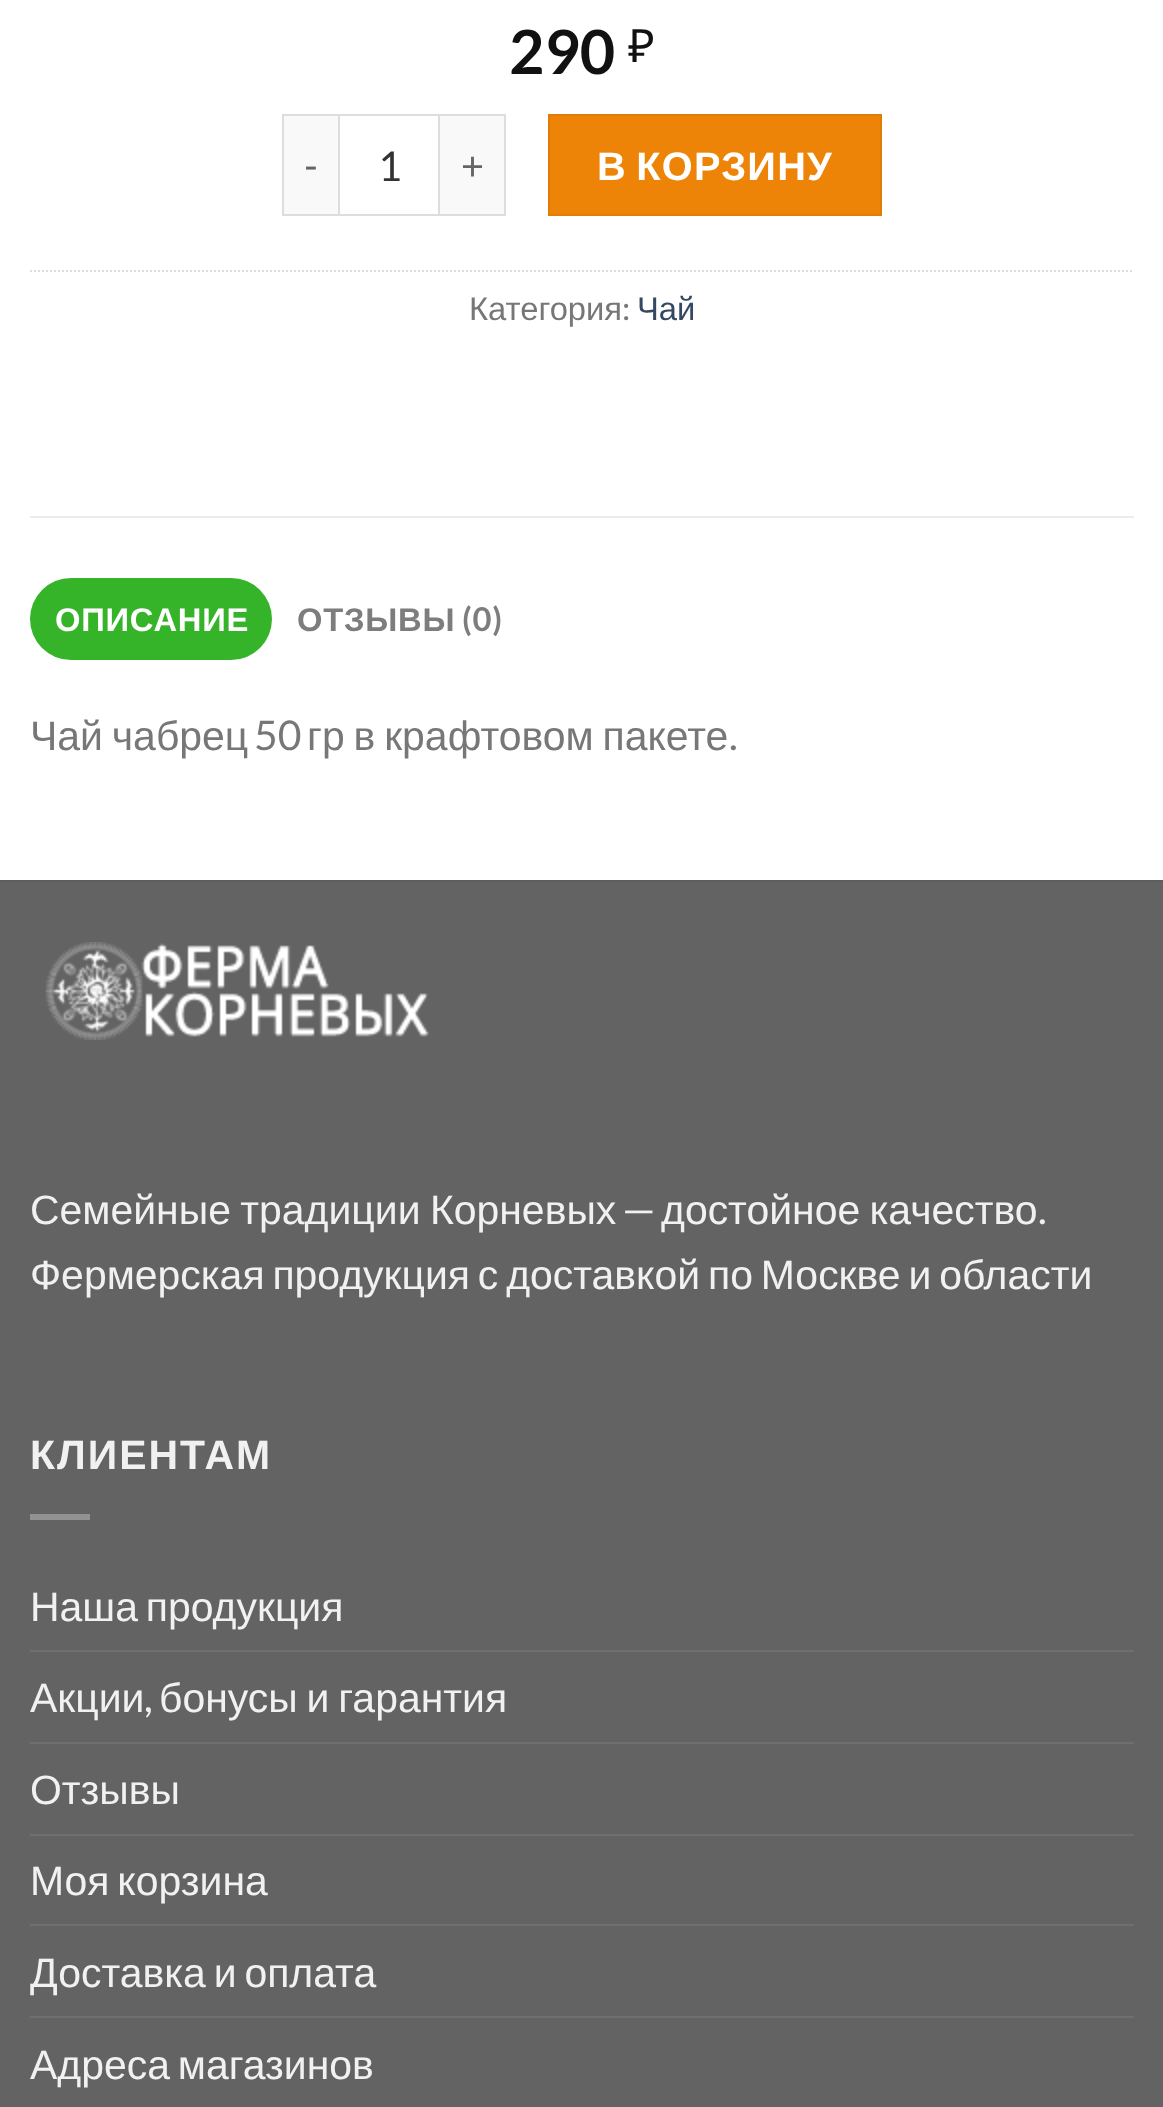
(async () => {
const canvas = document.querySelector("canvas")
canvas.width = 1163
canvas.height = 2107
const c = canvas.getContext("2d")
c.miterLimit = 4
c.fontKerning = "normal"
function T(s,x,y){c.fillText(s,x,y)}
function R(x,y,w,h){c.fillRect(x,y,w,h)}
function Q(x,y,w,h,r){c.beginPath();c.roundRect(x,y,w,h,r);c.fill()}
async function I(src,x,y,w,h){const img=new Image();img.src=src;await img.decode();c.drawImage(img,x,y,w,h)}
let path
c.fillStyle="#fff"
R(0,0,1163,2107)
c.font="bold 61px Lato"
c.fillStyle="#111"
T("290",509,74)
c.font="46px Noto Sans"
T("₽",628,62)
c.fillStyle="#f9f9f9"
R(284,116,54,98)
c.fillStyle="#ddd"
R(282,114,56,2)
R(282,214,56,2)
R(282,114,2,102)
c.letterSpacing="1.25px"
c.font="39.75px Lato"
c.fillStyle="#666"
T("-",304,180)
c.strokeStyle="#ddd"
c.lineWidth=2
c.strokeRect(339,115,100,100)
c.letterSpacing="0px"
c.font="40.95px Lato"
c.fillStyle="#333"
T("1",378,181)
c.fillStyle="#f9f9f9"
R(440,116,64,98)
c.fillStyle="#ddd"
R(440,114,66,2)
R(504,114,2,102)
R(440,214,66,2)
c.letterSpacing="1.25px"
c.font="39.75px Lato"
c.fillStyle="#666"
T("+",461,180)
c.fillStyle="#ed8407"
c.beginPath()
c.rect(549,115,332,100)
c.fill()
c.strokeStyle="#e17d07"
c.stroke()
c.wordSpacing="-3px"
c.font="bold 39.75px Liberation Sans"
c.fillStyle="#fff"
T("В КОРЗИНУ",597,180)
path = new Path2D("M30 271h1104")
c.strokeStyle="#ddd"
c.setLineDash([2,2])
c.stroke(path)
c.letterSpacing="0px"
c.wordSpacing="0px"
c.font="32.75px Liberation Sans"
c.fillStyle="#777"
T("Категория",469,320)
c.font="32.75px Lato"
T(":",622,320)
c.font="32.75px Liberation Sans"
c.fillStyle="#334862"
T("Чай",637,320)
c.fillStyle="#ececec"
R(30,516,1104,2)
c.fillStyle="#36b429"
Q(30,578,242,82,41)
c.letterSpacing="0.75px"
c.font="bold 32.75px Liberation Sans"
c.fillStyle="#fff"
T("ОПИСАНИЕ",55,631)
c.fillStyle="#7d7d7d"
T("ОТЗЫВЫ",297,631)
c.font="bold 32.75px Lato"
T("(0)",462,631)
c.letterSpacing="0px"
c.wordSpacing="-2.5px"
c.font="40.95px Liberation Sans"
c.fillStyle="#777"
T("Чай чабрец",30,750)
c.wordSpacing="0px"
c.font="40.95px Lato"
T("50",254,750)
c.wordSpacing="-2.5px"
c.font="40.95px Liberation Sans"
T("гр в крафтовом пакете",307,750)
c.wordSpacing="0px"
c.font="40.95px Lato"
T(".",729,750)
c.fillStyle="#636363"
R(0,882,1163,1225)
c.fillStyle="#5e5e5e"
R(0,880,1163,2)
await I("1.png",45,942,384,98)
c.wordSpacing="-2px"
c.font="40.95px Liberation Sans"
c.fillStyle="#f1f1f1"
T("Семейные традиции Корневых",30,1224)
c.wordSpacing="0px"
c.font="40.95px Lato"
T("—",622,1224)
c.wordSpacing="-2px"
c.font="40.95px Liberation Sans"
T("достойное качество",661,1224)
c.wordSpacing="0px"
c.font="40.95px Lato"
T(".",1038,1224)
c.wordSpacing="-3.5px"
c.font="40.95px Liberation Sans"
T("Фермерская продукция с доставкой по Москве и области",30,1289)
c.letterSpacing="2px"
c.wordSpacing="0px"
c.font="bold 40.95px Liberation Sans"
T("КЛИЕНТАМ",30,1469)
c.fillStyle="#929292"
R(30,1514,60,6)
c.letterSpacing="0px"
c.wordSpacing="-3.5px"
c.font="40.95px Liberation Sans"
c.fillStyle="#f1f1f1"
T("Наша продукция",30,1621)
c.fillStyle="#6f6f6f"
R(30,1650,1104,2)
c.wordSpacing="0px"
c.fillStyle="#f1f1f1"
T("Акции",30,1712)
c.font="40.95px Lato"
T(",",144,1712)
c.wordSpacing="-2.5px"
c.font="40.95px Liberation Sans"
T("бонусы и гарантия",159,1712)
c.fillStyle="#6f6f6f"
R(30,1742,1104,2)
c.wordSpacing="0px"
c.fillStyle="#f1f1f1"
T("Отзывы",30,1804)
c.fillStyle="#6f6f6f"
R(30,1834,1104,2)
c.wordSpacing="-3.5px"
c.fillStyle="#f1f1f1"
T("Моя корзина",30,1895)
c.fillStyle="#6f6f6f"
R(30,1924,1104,2)
c.fillStyle="#f1f1f1"
T("Доставка и оплата",30,1987)
c.fillStyle="#6f6f6f"
R(30,2016,1104,2)
c.fillStyle="#f1f1f1"
T("Адреса магазинов",30,2079)
})()
